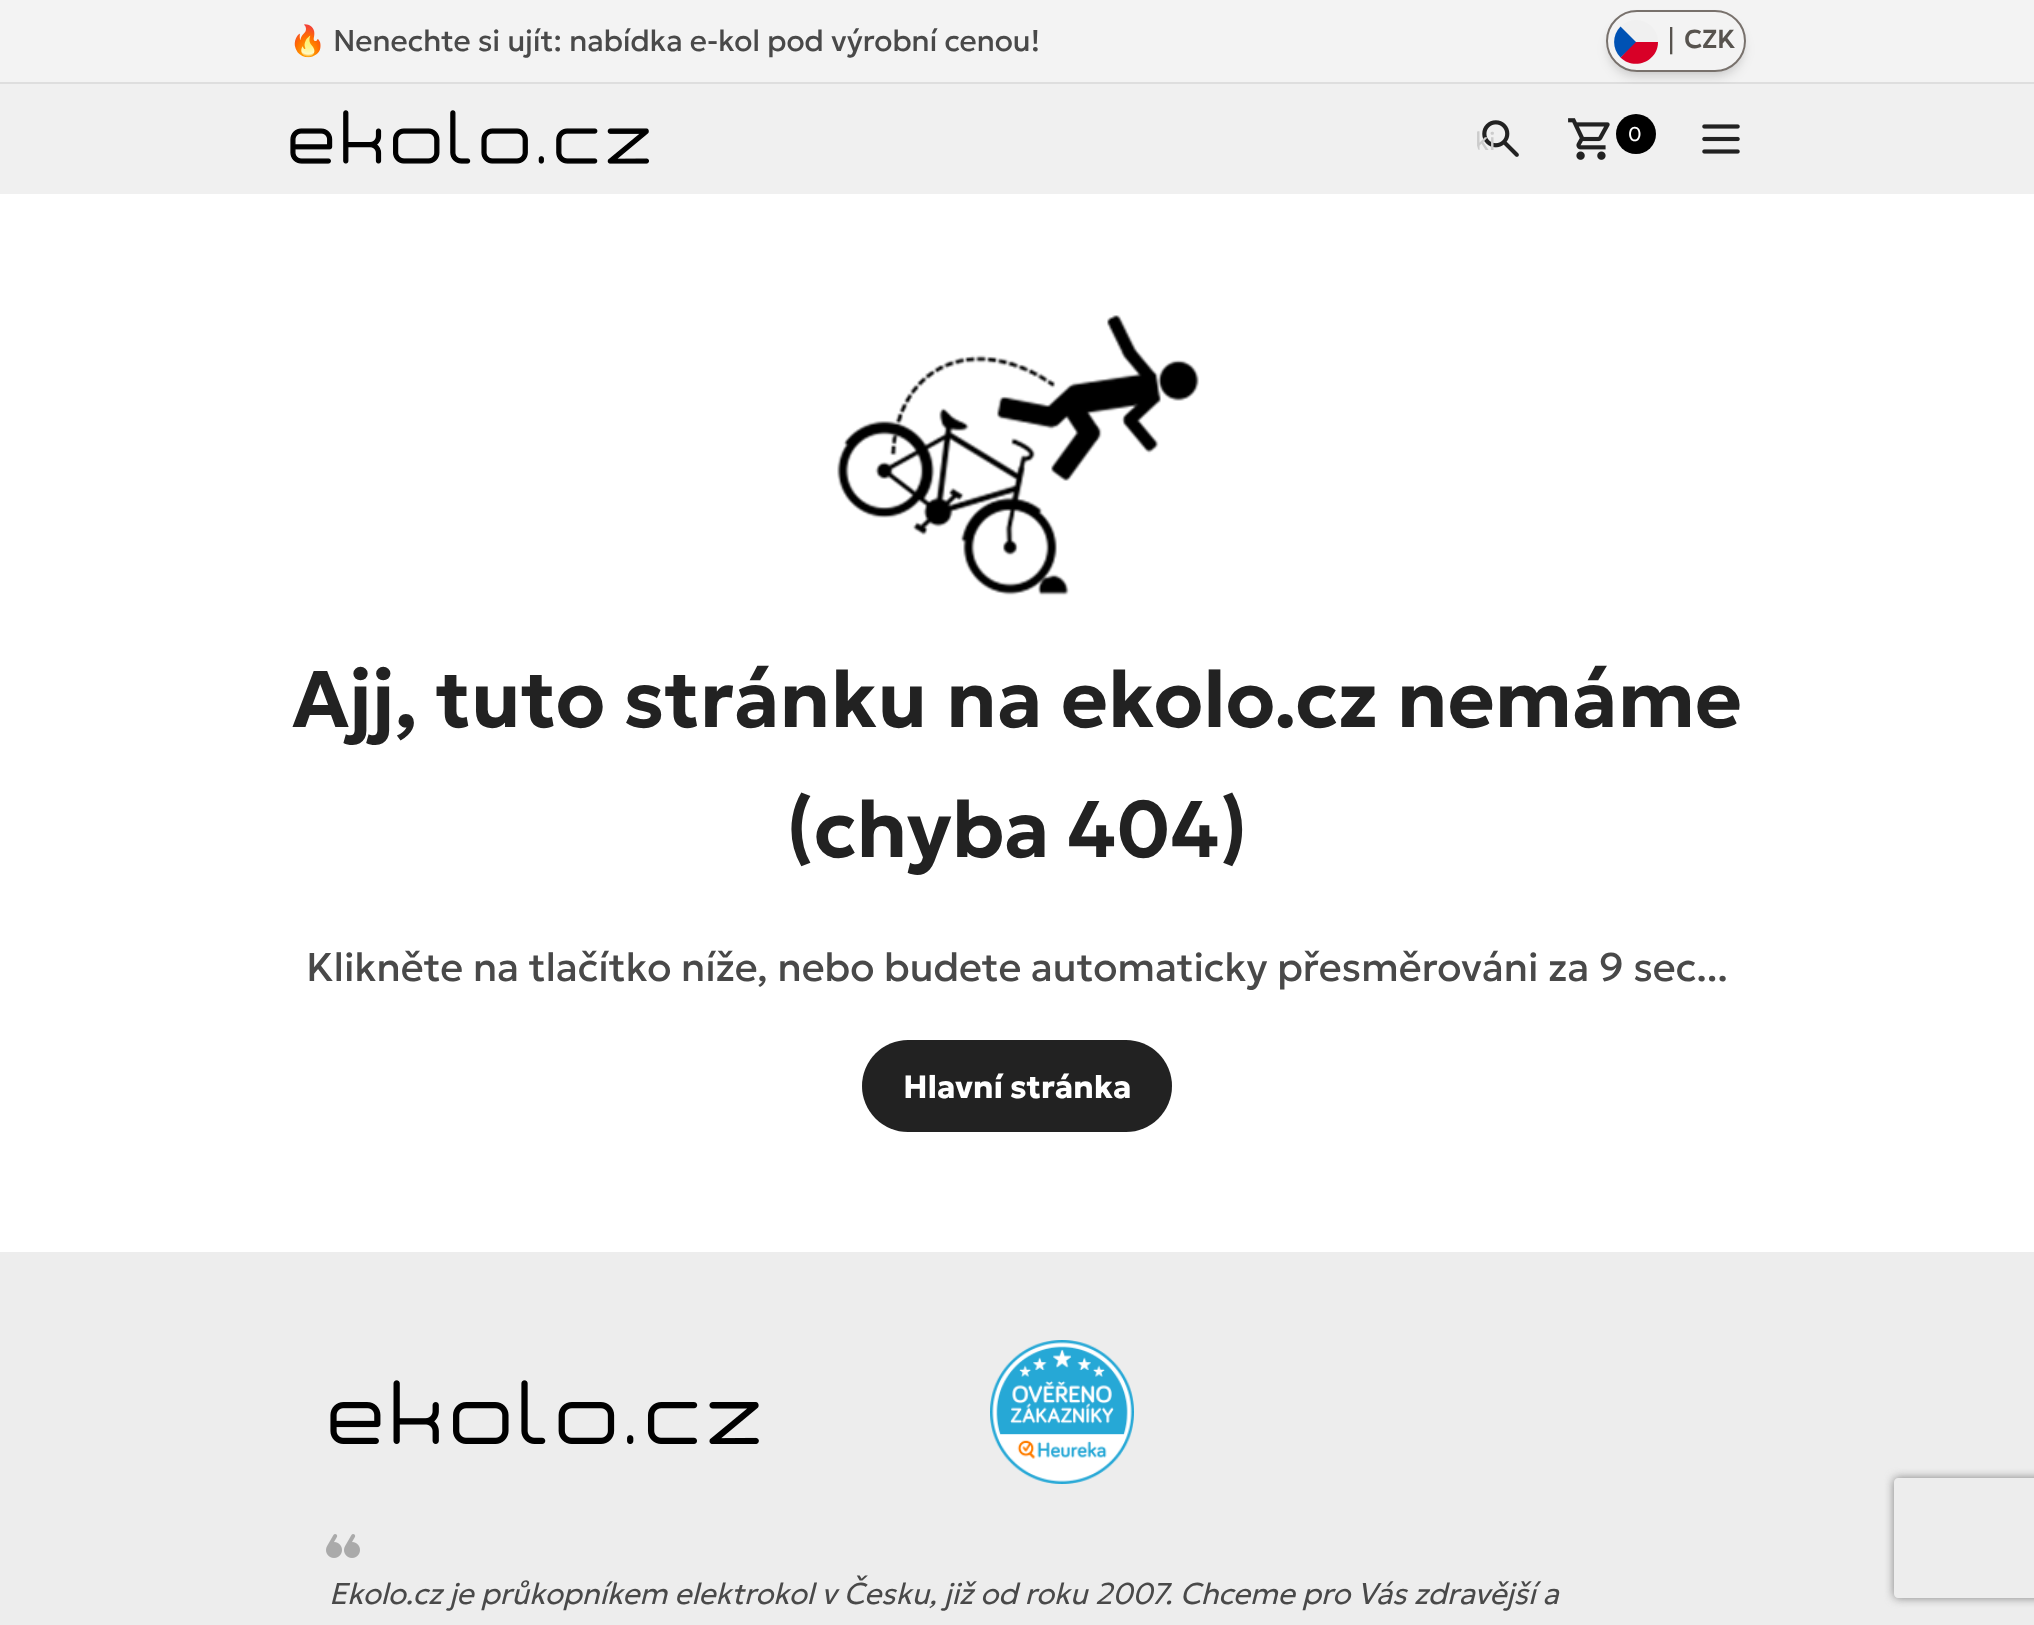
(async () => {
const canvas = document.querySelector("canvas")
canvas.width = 2034
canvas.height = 1625
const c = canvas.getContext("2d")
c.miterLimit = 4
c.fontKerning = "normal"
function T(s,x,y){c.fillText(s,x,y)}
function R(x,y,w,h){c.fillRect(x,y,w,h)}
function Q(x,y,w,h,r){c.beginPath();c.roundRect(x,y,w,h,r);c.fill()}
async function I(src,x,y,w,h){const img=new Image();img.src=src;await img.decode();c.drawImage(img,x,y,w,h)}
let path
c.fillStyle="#fff"
R(0,0,2034,1625)
c.fillStyle="#f3f3f3"
R(0,0,2034,82)
c.fillStyle="#dedede"
R(0,82,2034,2)
c.letterSpacing="-0.2px"
c.font="30px Noto Color Emoji"
c.fillStyle="#494949"
T("🔥",289,51)
c.font="30px Geologica"
T("Nenechte si ujít: nabídka e-kol pod výrobní cenou!",333,51)
c.save()
path = new Path2D("M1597 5h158v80h-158zm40 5h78c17 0 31 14 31 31c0 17-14 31-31 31h-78c-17 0-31-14-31-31c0-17 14-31 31-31z")
c.clip(path,"evenodd")
c.fillStyle="#0000001a"
c.filter="blur(4px)"
c.beginPath()
c.roundRect(1610,18,132,54,27)
c.fill()
c.filter="none"
c.restore()
c.save()
path = new Path2D("M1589 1h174v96h-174zm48 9h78c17 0 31 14 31 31c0 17-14 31-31 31h-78c-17 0-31-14-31-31c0-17 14-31 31-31z")
c.clip(path,"evenodd")
c.fillStyle="#0000001a"
c.filter="blur(6px)"
c.beginPath()
c.roundRect(1608,20,136,58,29)
c.fill()
c.filter="none"
c.restore()
c.beginPath()
c.roundRect(1607,11,138,60,30)
c.strokeStyle="#78716c"
c.lineWidth=2
c.stroke()
c.fillStyle="#f0f0f0"
c.beginPath()
c.arc(1636,42,22,0,7)
c.fill()
c.fillStyle="#d80027"
path = new Path2D("M1634 42l-13.5 15.5c13.5 13.5 37.5 4 37.5-15.5z")
c.fill(path)
c.fillStyle="#0052b4"
path = new Path2D("M1620.5 26.5c-8.5 8.5-8.5 22.5 0 31l15.5-15.5z")
c.fill(path)
c.font="300 30px Geologica"
c.fillStyle="#57534e"
T("|",1667,51)
c.font="500 26px Geologica"
T("CZK",1684,48)
c.fillStyle="#ebebebbf"
R(0,84,2034,110)
await I("1.png",290,110,359,54)
await I("2.png",1482,120,37,37)
c.save()
c.beginPath()
c.roundRect(1476,114,50,50,[25,0,0,25])
c.clip()
c.font="300 26px Geologica"
c.fillStyle="#ccc"
T("ki",1475,150)
c.restore()
await I("3.png",1568,118,42,42)
c.fillStyle="#000"
c.beginPath()
c.arc(1636,134,20,0,7)
c.fill()
c.font="300 20px Geologica"
c.fillStyle="#fff"
T("0",1628,141)
await I("4.png",1702,124,38,30)
await I("5.png",837,315,362,281)
c.font="600 80px Geologica"
c.fillStyle="#222"
T("Ajj, tuto stránku na ekolo.cz nemáme",292,727)
T("(chyba 404)",786,857)
c.font="40px Geologica"
c.fillStyle="#494949"
T("Klikněte na tlačítko níže, nebo budete automaticky přesměrováni za 9 sec...",306,981)
c.fillStyle="#222"
Q(862,1040,310,92,46)
c.font="bold 32px Geologica"
c.fillStyle="#fff"
T("Hlavní stránka",903,1098)
c.fillStyle="#ededed"
R(0,1252,2034,373)
await I("6.png",330,1380,429,64)
await I("7.png",990,1340,144,144)
await I("8.png",326,1534,34,24)
c.font="italic 300 30px Geologica"
c.fillStyle="#494949"
T("Ekolo.cz je průkopníkem elektrokol v Česku, již od roku 2007. Chceme pro Vás zdravější a",329,1604)
c.save()
path = new Path2D("M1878 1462h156v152h-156zm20 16h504c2 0 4 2 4 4v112c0 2-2 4-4 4h-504c-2 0-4-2-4-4v-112c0-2 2-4 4-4z")
c.clip(path,"evenodd")
c.fillStyle="#808080"
c.filter="blur(5px)"
c.beginPath()
c.roundRect(1894,1478,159,120,4)
c.fill()
c.filter="none"
c.restore()
})()
